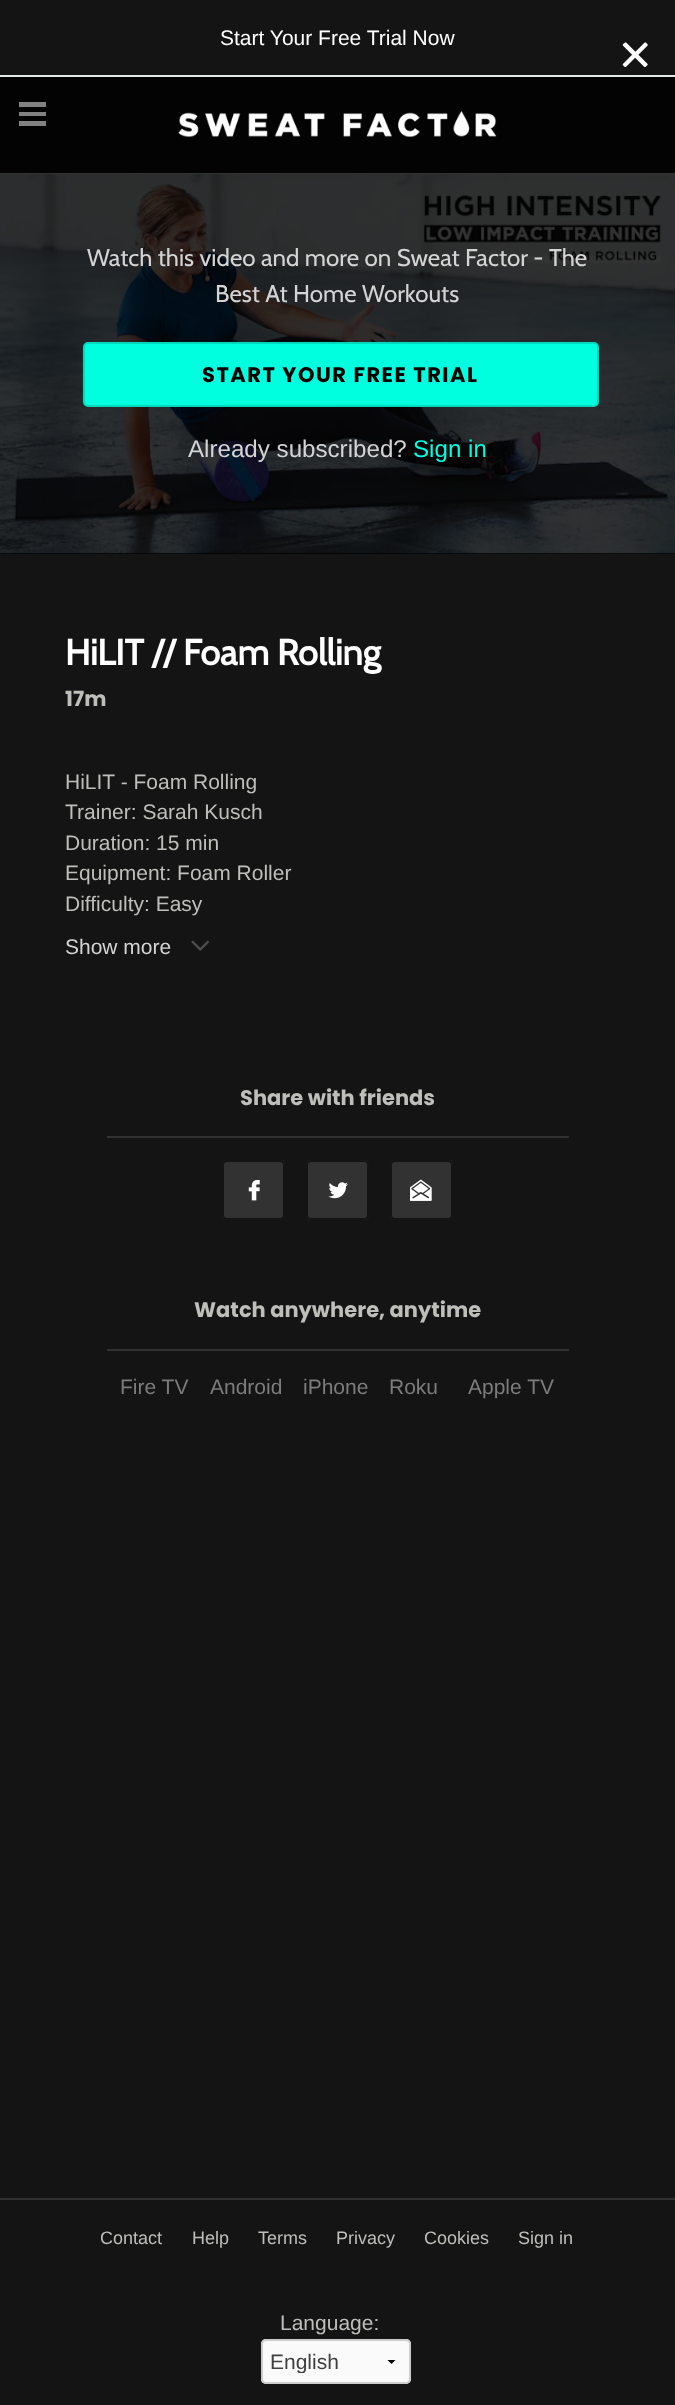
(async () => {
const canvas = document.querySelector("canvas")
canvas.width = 675
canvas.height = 2405
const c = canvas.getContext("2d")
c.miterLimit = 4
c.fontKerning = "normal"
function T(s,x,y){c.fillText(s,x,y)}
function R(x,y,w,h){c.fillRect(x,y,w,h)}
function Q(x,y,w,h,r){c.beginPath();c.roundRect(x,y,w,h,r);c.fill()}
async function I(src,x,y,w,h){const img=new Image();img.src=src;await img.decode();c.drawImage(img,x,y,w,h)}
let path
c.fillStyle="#141414"
R(0,0,675,2405)
c.fillStyle="#e3e8e9"
R(0,75,675,2)
c.font="21px Liberation Sans"
c.fillStyle="#fff"
T("Start Your Free Trial Now",220,45)
await I("1.png",622,42,26,26)
c.fillStyle="#030303"
R(0,77,675,96)
c.fillStyle="#323232"
R(0,173,675,1)
c.fillStyle="#818181"
R(19,102,27,5)
R(19,112,27,4)
R(19,121,27,5)
await I("2.png",178,111,319,27)
c.fillStyle="#000"
R(0,553,675,1)
await I("3.png",0,174,675,380)
c.font="24.15px Cabin"
c.fillStyle="#d4d4d4"
T("Watch this video and more on Sweat Factor - The",87,266)
T("Best At Home Workouts",215,302)
c.fillStyle="#00ffde"
c.beginPath()
c.roundRect(84,343,514,63,4)
c.fill()
c.strokeStyle="#00d9bd"
c.lineWidth=2
c.stroke()
c.letterSpacing="1.5px"
c.font="bold 21px Poppins"
c.fillStyle="#000"
T("START YOUR FREE TRIAL",202,382)
c.letterSpacing="0px"
c.font="24.15px Liberation Sans"
c.fillStyle="#d4d4d4"
T("Already subscribed?",188,457)
c.fillStyle="#00ffde"
T("Sign in",413,457)
c.font="bold 36px Cabin"
c.fillStyle="#fff"
T("HiLIT // Foam Rolling",65,665)
c.font="bold 21px Poppins"
c.fillStyle="#bebebb"
T("17m",65,706)
c.font="21px Liberation Sans"
T("HiLIT - Foam Rolling",65,789)
T("Trainer: Sarah Kusch",65,819)
T("Duration: 15 min",65,850)
T("Equipment: Foam Roller",65,880)
T("Difficulty: Easy",65,911)
c.fillStyle="#d4d4d4"
T("Show more",65,954)
await I("4.png",191,940,18,11)
c.fillStyle="#323232"
R(107,1136,462,2)
c.font="bold 21px Poppins"
c.fillStyle="#bebebb"
T("Share with friends",240,1105)
c.fillStyle="#323232"
Q(222,1160,63,60,5)
await I("5.png",248,1180,12,21)
c.beginPath()
c.roundRect(223,1161,61,58,4)
c.strokeStyle="#141414"
c.stroke()
Q(306,1160,63,60,5)
await I("6.png",328,1182,20,17)
c.beginPath()
c.roundRect(307,1161,61,58,4)
c.stroke()
Q(390,1160,63,60,5)
await I("7.png",410,1179,22,22)
c.beginPath()
c.roundRect(391,1161,61,58,4)
c.stroke()
R(107,1349,462,2)
c.fillStyle="#bebebb"
T("Watch anywhere, anytime",194,1317)
c.font="21px Liberation Sans"
c.fillStyle="#7c7c7c"
T("Fire TV",120,1394)
T("Android",210,1394)
T("iPhone",303,1394)
T("Roku",389,1394)
T("Apple TV",468,1394)
c.fillStyle="#323232"
R(0,2198,675,2)
c.font="18px Liberation Sans"
c.fillStyle="#bebebb"
T("Contact",100,2244)
T("Help",192,2244)
T("Terms",258,2244)
T("Privacy",336,2244)
T("Cookies",424,2244)
T("Sign in",518,2244)
c.font="21px Liberation Sans"
T("Language:",280,2330)
c.fillStyle="#fafafa"
Q(261,2339,150,45,5)
c.save()
c.beginPath()
c.rect(374,2360,36,5)
c.clip()
c.fillStyle="#000"
path = new Path2D("M396 2359.5l-4.5 4.5l-4.5-4.5z")
c.fill(path)
c.restore()
c.beginPath()
c.roundRect(262,2340,148,43,4)
c.strokeStyle="#ccc"
c.stroke()
c.save()
c.beginPath()
c.rect(270,2349,132,24)
c.clip()
c.fillStyle="#3f3f3f"
T("English",270,2369)
c.restore()
})()
